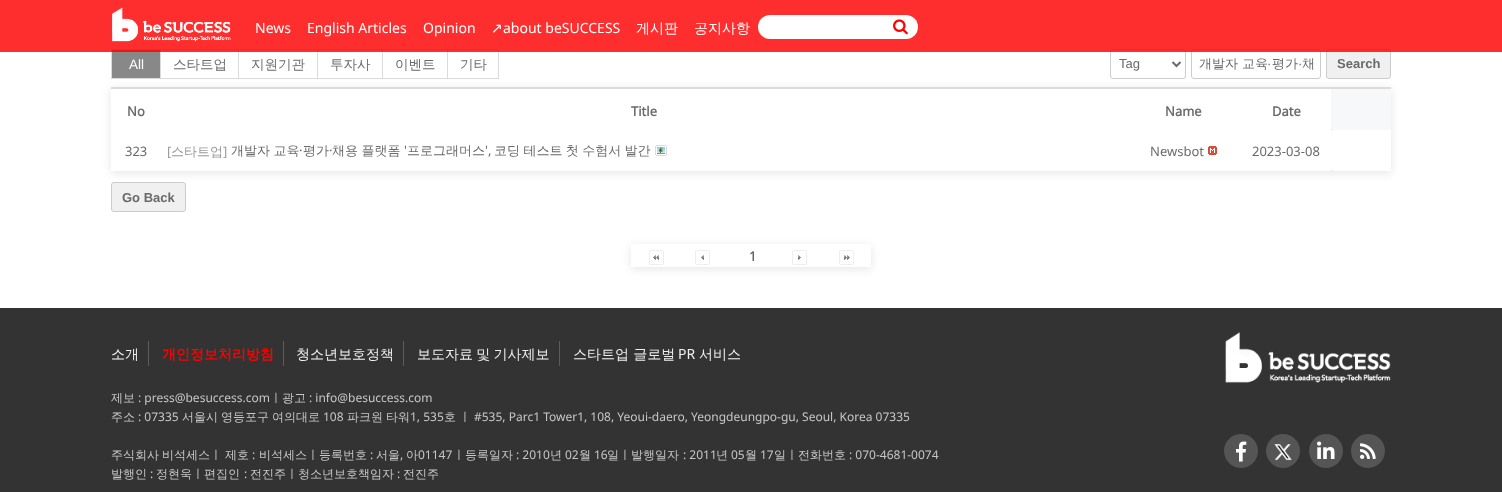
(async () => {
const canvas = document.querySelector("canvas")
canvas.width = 1502
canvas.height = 492
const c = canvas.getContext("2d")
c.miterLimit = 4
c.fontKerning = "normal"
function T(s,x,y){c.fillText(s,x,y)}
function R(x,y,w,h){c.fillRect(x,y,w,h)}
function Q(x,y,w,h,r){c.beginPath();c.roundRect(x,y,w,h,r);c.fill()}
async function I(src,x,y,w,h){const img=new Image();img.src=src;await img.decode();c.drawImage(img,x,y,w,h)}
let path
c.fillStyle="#fff"
R(0,0,1502,492)
c.save()
path = new Path2D("M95 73h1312v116h-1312zm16 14h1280v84h-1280z")
c.clip(path,"evenodd")
c.fillStyle="#0000001a"
c.filter="blur(5px)"
c.beginPath()
c.rect(111,89,1280,84)
c.fill()
c.filter="none"
c.restore()
c.fillStyle="#888"
c.beginPath()
c.rect(111.5,49.5,49,29)
c.fill()
c.strokeStyle="#dbdbdb"
c.stroke()
c.strokeRect(160.5,49.5,78,29)
c.strokeRect(238.5,49.5,79,29)
c.strokeRect(317.5,49.5,65,29)
c.strokeRect(382.5,49.5,65,29)
c.strokeRect(447.5,49.5,51,29)
c.beginPath()
c.roundRect(1110.5,49.5,75,29,2.5)
c.strokeStyle="#ccc"
c.stroke()
c.beginPath()
c.roundRect(1191.5,49.5,129,29,2.5)
c.stroke()
c.fillStyle="#f0f0f0"
c.beginPath()
c.roundRect(1326.5,49.5,64,29,2.5)
c.fill()
c.stroke()
c.fillStyle="#ff0000d1"
R(0,0,1502,52)
await I("1.png",112,7,119,35)
c.font="14px Noto Sans"
c.fillStyle="#fff"
T("News",255,33)
T("English Articles",307,33)
T("Opinion",423,33)
c.font="14px DejaVu Sans"
T("↗︎",491,33)
c.font="14px Noto Sans"
T("about beSUCCESS",503,33)
c.font="500 14px WenQuanYi Zen Hei"
T("게시판",636,33)
T("공지사항",694,33)
Q(758,15,160,24,12)
await I("2.png",893,19,15,16)
c.font="13.5px Liberation Sans"
T("All",129,69)
c.font="500 13.5px WenQuanYi Zen Hei"
c.fillStyle="#6a6a6a"
T("스타트업",173,69)
T("지원기관",251,69)
T("투자사",330,69)
T("이벤트",395,69)
T("기타",460,69)
path = new Path2D("M1172.5 62l4 4l4-4")
c.strokeStyle="#6a6a6a"
c.lineWidth=2
c.stroke(path)
c.font="13px Liberation Sans"
T("Tag",1119,68)
c.font="500 13px WenQuanYi Zen Hei"
T("개발자 교육",1199,68)
c.font="13px Liberation Sans"
T("·",1267,68)
c.font="500 13px WenQuanYi Zen Hei"
T("평가",1272,68)
c.font="13px Liberation Sans"
T("·",1298,68)
c.font="500 13px WenQuanYi Zen Hei"
T("채",1302,68)
c.font="bold 13px Liberation Sans"
T("Search",1337,68)
c.fillStyle="#dbdbdb"
R(111,87,1280,2)
c.fillStyle="#f7f8f9"
R(1331,89,60,41)
c.font="bold 13px Noto Sans"
c.fillStyle="#6a6a6a"
T("No",127,116)
T("Title",631,116)
T("Name",1165,116)
c.fillStyle="#dbdbdb"
R(1331,129,1,1)
c.fillStyle="#6a6a6a"
T("Date",1272,116)
c.font="13px Noto Sans"
T("323",125,156)
c.fillStyle="#999"
T("[",167,156)
c.font="500 13px WenQuanYi Zen Hei"
T("스타트업",171,156)
c.font="13px Noto Sans"
T("]",223,156)
c.wordSpacing="-0.5px"
c.font="500 13px WenQuanYi Zen Hei"
c.fillStyle="#6a6a6a"
T("개발자 교육",231,155)
c.wordSpacing="0px"
c.font="13px Noto Sans"
T("·",299,155)
c.font="500 13px WenQuanYi Zen Hei"
T("평가",303,155)
c.font="13px Noto Sans"
T("·",329,155)
c.wordSpacing="-0.5px"
c.font="500 13px WenQuanYi Zen Hei"
T("채용 플랫폼",332,155)
c.wordSpacing="0px"
c.font="13px Noto Sans"
T("'",404,155)
c.font="500 13px WenQuanYi Zen Hei"
T("프로그래머스",407,155)
c.font="13px Noto Sans"
T("',",485,155)
c.wordSpacing="-0.5px"
c.font="500 13px WenQuanYi Zen Hei"
T("코딩 테스트 첫 수험서 발간",494,155)
await I("3.png",655,145,12,11)
c.wordSpacing="0px"
c.font="13px Noto Sans"
T("Newsbot",1150,156)
await I("4.png",1208,146,9,9)
c.fillStyle="#dbdbdb"
R(1331,170,1,1)
c.fillStyle="#6a6a6a"
T("2023-03-08",1252,156)
c.fillStyle="#f0f0f0"
c.beginPath()
c.roundRect(111.5,182.5,74,29,2.5)
c.fill()
c.strokeStyle="#ccc"
c.lineWidth=1
c.stroke()
c.font="bold 13px Liberation Sans"
c.fillStyle="#6a6a6a"
T("Go Back",122,202)
c.save()
path = new Path2D("M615 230h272v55h-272zm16 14h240v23h-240z")
c.clip(path,"evenodd")
c.fillStyle="#0000001a"
c.filter="blur(5px)"
c.beginPath()
c.rect(631,246,240,23)
c.fill()
c.filter="none"
c.restore()
await I("5.png",649,250,15,15)
await I("6.png",695,250,15,15)
c.font="bold 13px Noto Sans"
T("1",749,261)
await I("7.png",792,250,15,15)
await I("8.png",839,250,15,15)
c.fillStyle="#333"
R(0,308,1502,184)
c.font="500 14px WenQuanYi Zen Hei"
c.fillStyle="#efefef"
T("소개",111,359)
c.fillStyle="#5c5c5c"
R(148,341,1,25)
c.font="bold 14px WenQuanYi Zen Hei"
c.fillStyle="#f00"
T("개인정보처리방침",162,359)
c.fillStyle="#5c5c5c"
R(283,341,1,25)
c.font="500 14px WenQuanYi Zen Hei"
c.fillStyle="#efefef"
T("청소년보호정책",296,359)
c.fillStyle="#5c5c5c"
R(403,341,1,25)
c.wordSpacing="-1px"
c.fillStyle="#efefef"
T("보도자료 및 기사제보",417,359)
c.fillStyle="#5c5c5c"
R(559,341,1,25)
c.wordSpacing="0px"
c.fillStyle="#efefef"
T("스타트업 글로벌",573,359)
c.font="14px Noto Sans"
T("PR",678,359)
c.font="500 14px WenQuanYi Zen Hei"
T("서비스",699,359)
c.font="500 12px WenQuanYi Zen Hei"
c.fillStyle="#c7c7c7"
T("제보",111,402)
c.font="12px Noto Sans"
T(": press@besuccess.com",138,402)
c.font="500 12px WenQuanYi Zen Hei"
T("ㅣ광고",270,402)
c.font="12px Noto Sans"
T(": info@besuccess.com",309,402)
c.font="500 12px WenQuanYi Zen Hei"
T("주소",111,421)
c.font="12px Noto Sans"
T(": 07335",138,421)
c.font="500 12px WenQuanYi Zen Hei"
T("서울시",182,421)
T("영등포구",221,421)
T("여의대로",272,421)
c.font="12px Noto Sans"
T("108",323,421)
c.font="500 12px WenQuanYi Zen Hei"
T("파크원",347,421)
T("타워",386,421)
c.font="12px Noto Sans"
T("1, 535",410,421)
c.font="500 12px WenQuanYi Zen Hei"
T("호",444,421)
T("ㅣ",459,421)
c.font="12px Noto Sans"
T("#535, Parc1 Tower1, 108, Yeoui-daero, Yeongdeungpo-gu, Seoul, Korea 07335",474,421)
c.font="500 12px WenQuanYi Zen Hei"
T("주식회사",111,459)
T("비석세스ㅣ",162,459)
T("제호",225,459)
c.font="12px Noto Sans"
T(":",252,459)
c.font="500 12px WenQuanYi Zen Hei"
T("비석세스ㅣ등록번호",259,459)
c.font="12px Noto Sans"
T(":",370,459)
c.font="500 12px WenQuanYi Zen Hei"
T("서울",376,459)
c.font="12px Noto Sans"
T(",",400,459)
c.font="500 12px WenQuanYi Zen Hei"
T("아",406,459)
c.font="12px Noto Sans"
T("01147",418,459)
c.font="500 12px WenQuanYi Zen Hei"
T("ㅣ등록일자",453,459)
c.font="12px Noto Sans"
T(": 2010",516,459)
c.font="500 12px WenQuanYi Zen Hei"
T("년",550,459)
c.font="12px Noto Sans"
T("02",565,459)
c.font="500 12px WenQuanYi Zen Hei"
T("월",579,459)
c.font="12px Noto Sans"
T("16",594,459)
c.font="500 12px WenQuanYi Zen Hei"
T("일ㅣ발행일자",607,459)
c.font="12px Noto Sans"
T(": 2011",683,459)
c.font="500 12px WenQuanYi Zen Hei"
T("년",716,459)
c.font="12px Noto Sans"
T("05",731,459)
c.font="500 12px WenQuanYi Zen Hei"
T("월",745,459)
c.font="12px Noto Sans"
T("17",760,459)
c.font="500 12px WenQuanYi Zen Hei"
T("일ㅣ전화번호",774,459)
c.font="12px Noto Sans"
T(": 070-4681-0074",849,459)
c.font="500 12px WenQuanYi Zen Hei"
T("발행인",111,478)
c.font="12px Noto Sans"
T(":",150,478)
c.font="500 12px WenQuanYi Zen Hei"
T("정현욱ㅣ편집인",156,478)
c.font="12px Noto Sans"
T(":",244,478)
c.font="500 12px WenQuanYi Zen Hei"
T("전진주ㅣ청소년보호책임자",250,478)
c.font="12px Noto Sans"
T(":",397,478)
c.font="500 12px WenQuanYi Zen Hei"
T("전진주",403,478)
await I("9.png",1225,332,166,51)
c.fillStyle="#555"
c.beginPath()
c.arc(1241,451,17,0,7)
c.fill()
await I("10.png",1236,441,11,21)
c.beginPath()
c.arc(1283,451,17,0,7)
c.fill()
await I("11.png",1274,444,18,17)
c.beginPath()
c.arc(1326,451,17,0,7)
c.fill()
await I("12.png",1317,441,18,18)
c.beginPath()
c.arc(1368,451,17,0,7)
c.fill()
await I("13.png",1360,443,16,16)
})()
